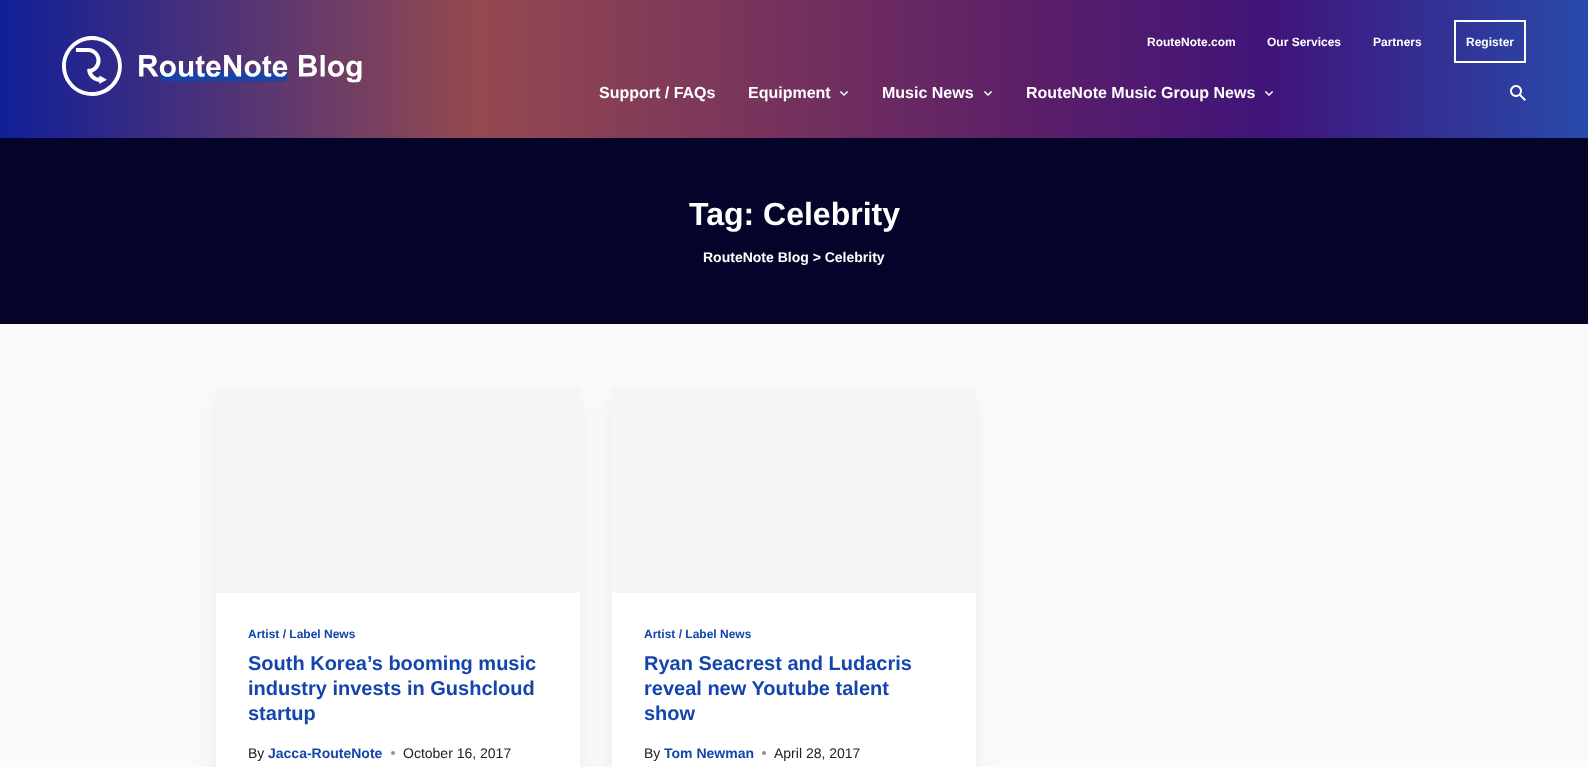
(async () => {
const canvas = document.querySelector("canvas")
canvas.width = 1588
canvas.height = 767
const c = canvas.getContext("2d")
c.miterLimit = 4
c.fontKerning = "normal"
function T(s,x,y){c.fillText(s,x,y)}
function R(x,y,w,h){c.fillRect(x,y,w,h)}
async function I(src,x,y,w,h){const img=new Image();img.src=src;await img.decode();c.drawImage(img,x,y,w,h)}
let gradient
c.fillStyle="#fafafa"
R(0,0,1588,767)
gradient = c.createLinearGradient(0,69,1588,69)
gradient.addColorStop(0,"#101f99")
gradient.addColorStop(.3,"#954950")
gradient.addColorStop(.65,"#5b1f68")
gradient.addColorStop(.8,"#40147a")
gradient.addColorStop(1,"#284aab")
c.fillStyle = gradient
R(0,0,1588,138)
c.font="bold 12px Liberation Sans"
c.fillStyle="#fff"
T("RouteNote.com",1147,46)
T("Our Services",1267,46)
T("Partners",1373,46)
c.strokeStyle="#fff"
c.lineWidth=2
c.strokeRect(1455,21,70,41)
T("Register",1466,46)
await I("1.png",62,36,300,60)
c.font="bold 16px Liberation Sans"
T("Support / FAQs",599,98)
T("Equipment",748,98)
await I("2.png",840,91,8,5)
T("Music News",882,98)
await I("3.png",984,91,8,5)
T("RouteNote Music Group News",1026,98)
await I("4.png",1265,91,8,5)
await I("5.png",1510,85,16,16)
c.fillStyle="#04042a"
R(0,138,1588,186)
c.font="bold 32px Liberation Sans"
c.fillStyle="#fff"
T("Tag: Celebrity",689,225)
c.font="bold 14px Liberation Sans"
T("RouteNote Blog > Celebrity",703,262)
c.fillStyle="#1345ac14"
c.filter="blur(10.5px)"
c.beginPath()
c.rect(215,400,364,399)
c.fill()
c.filter="none"
c.fillStyle="#fff"
R(216,593,364,174)
c.fillStyle="#f5f5f5"
R(216,388,364,205)
c.font="bold 12px Liberation Sans"
c.fillStyle="#1345ac"
T("Artist / Label News",248,638)
c.font="bold 20px Liberation Sans"
T("South Korea’s booming music",248,670)
T("industry invests in Gushcloud",248,695)
T("startup",248,720)
c.font="14px Liberation Sans"
c.fillStyle="#202020"
T("By",248,758)
c.font="bold 14px Liberation Sans"
c.fillStyle="#1345ac"
T("Jacca-RouteNote",268,758)
c.fillStyle="#909090"
c.beginPath()
c.arc(393,753,2,0,7)
c.fill()
c.font="14px Liberation Sans"
c.fillStyle="#202020"
T("October 16, 2017",403,758)
c.fillStyle="#1345ac14"
c.filter="blur(10.5px)"
c.beginPath()
c.rect(611,400,364,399)
c.fill()
c.filter="none"
c.fillStyle="#fff"
R(612,593,364,174)
c.fillStyle="#f5f5f5"
R(612,388,364,205)
c.font="bold 12px Liberation Sans"
c.fillStyle="#1345ac"
T("Artist / Label News",644,638)
c.font="bold 20px Liberation Sans"
T("Ryan Seacrest and Ludacris",644,670)
T("reveal new Youtube talent",644,695)
T("show",644,720)
c.font="14px Liberation Sans"
c.fillStyle="#202020"
T("By",644,758)
c.font="bold 14px Liberation Sans"
c.fillStyle="#1345ac"
T("Tom Newman",664,758)
c.fillStyle="#909090"
c.beginPath()
c.arc(764,753,2,0,7)
c.fill()
c.font="14px Liberation Sans"
c.fillStyle="#202020"
T("April 28, 2017",774,758)
})()
